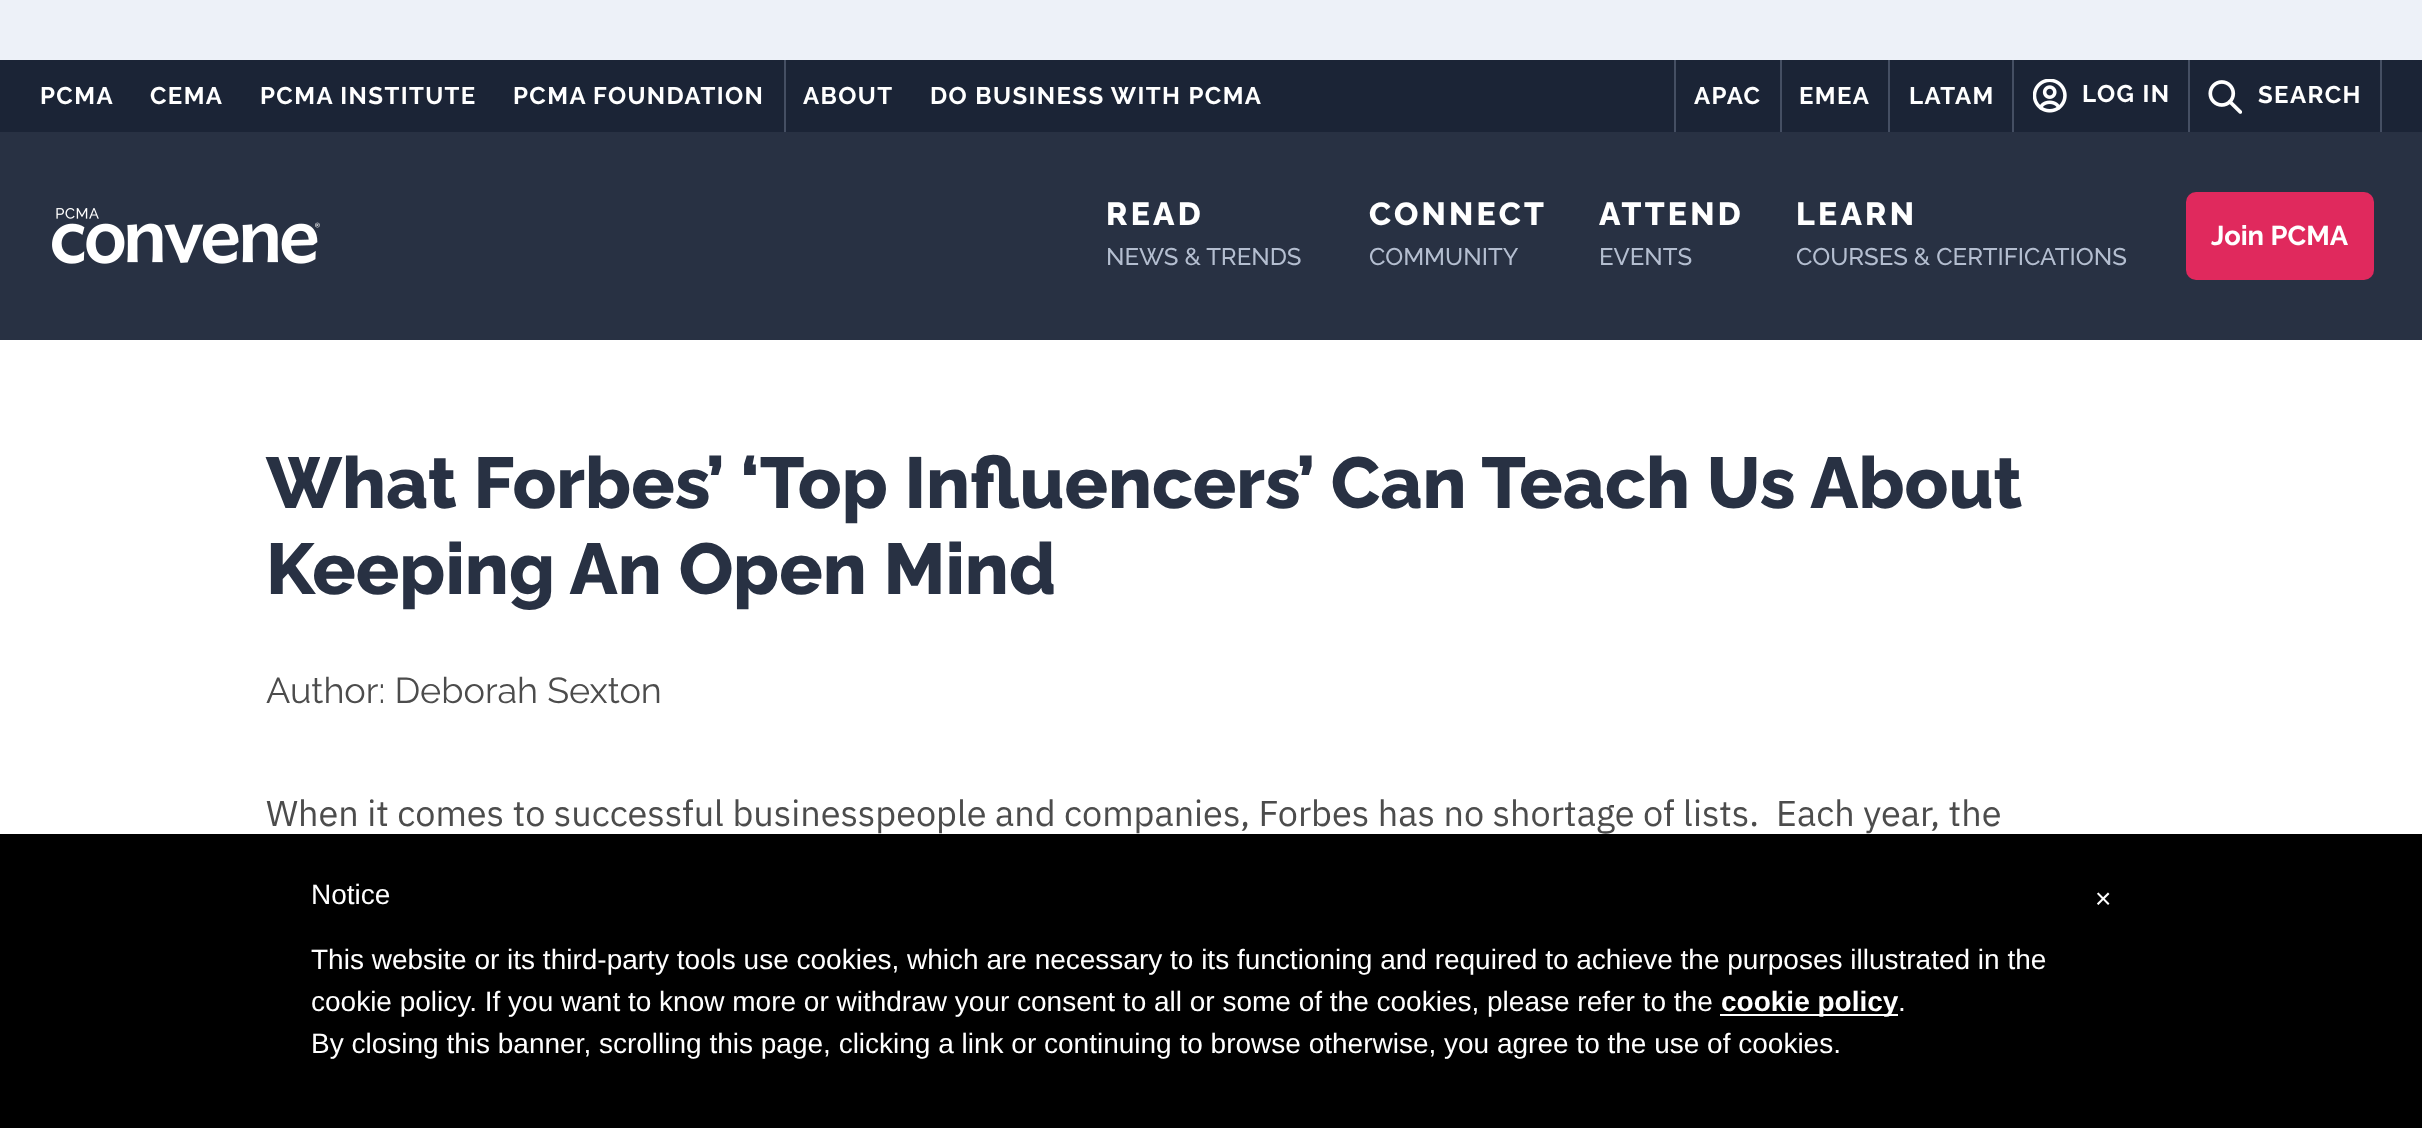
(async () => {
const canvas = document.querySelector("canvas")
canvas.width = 2422
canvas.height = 1128
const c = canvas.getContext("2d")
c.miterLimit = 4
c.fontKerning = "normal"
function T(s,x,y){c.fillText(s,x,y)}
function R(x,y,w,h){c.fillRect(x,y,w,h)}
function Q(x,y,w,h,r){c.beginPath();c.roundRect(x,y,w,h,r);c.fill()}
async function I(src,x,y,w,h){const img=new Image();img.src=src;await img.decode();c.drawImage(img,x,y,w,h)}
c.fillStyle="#fff"
R(0,0,2422,1128)
c.fillStyle="#edf1f8"
R(0,0,2422,60)
c.fillStyle="#1b2436"
R(0,60,2422,72)
c.letterSpacing="1.4px"
c.font="bold 24px Raleway"
c.fillStyle="#fff"
T("PCMA",40,104)
T("CEMA",150,104)
T("PCMA INSTITUTE",260,104)
T("PCMA",513,104)
T("FOUNDATION",593,104)
c.fillStyle="#454f63"
R(784,60,2,72)
c.fillStyle="#fff"
T("ABOUT",803,104)
T("DO BUSINESS WITH PCMA",930,104)
c.fillStyle="#454f63"
R(1674,60,2,72)
c.fillStyle="#fff"
T("APAC",1694,104)
c.fillStyle="#454f63"
R(1780,60,2,72)
c.fillStyle="#fff"
T("EMEA",1799,104)
c.fillStyle="#454f63"
R(1888,60,2,72)
c.fillStyle="#fff"
T("LATAM",1909,104)
c.fillStyle="#454f63"
R(2012,60,2,72)
await I("1.png",2033,79,34,34)
c.fillStyle="#fff"
T("LOG IN",2082,102)
c.fillStyle="#454f63"
R(2380,60,2,72)
R(2188,60,2,72)
await I("2.png",2208,80,34,34)
c.fillStyle="#fff"
T("SEARCH",2258,103)
c.fillStyle="#283143"
R(0,132,2422,208)
await I("3.png",52,208,268,56)
c.letterSpacing="3.25px"
c.font="800 32px Raleway"
c.fillStyle="#fff"
T("READ",1106,225)
c.letterSpacing="0px"
c.font="500 24px Raleway"
c.fillStyle="#b4bed0"
T("NEWS & TRENDS",1106,265)
c.letterSpacing="3.25px"
c.font="800 32px Raleway"
c.fillStyle="#fff"
T("CONNECT",1369,225)
c.letterSpacing="0px"
c.font="500 24px Raleway"
c.fillStyle="#b4bed0"
T("COMMUNITY",1369,265)
c.letterSpacing="3.25px"
c.font="800 32px Raleway"
c.fillStyle="#fff"
T("ATTEND",1599,225)
c.letterSpacing="0px"
c.font="500 24px Raleway"
c.fillStyle="#b4bed0"
T("EVENTS",1599,265)
c.letterSpacing="3.25px"
c.font="800 32px Raleway"
c.fillStyle="#fff"
T("LEARN",1796,225)
c.letterSpacing="0px"
c.font="500 24px Raleway"
c.fillStyle="#b4bed0"
T("COURSES & CERTIFICATIONS",1796,265)
c.fillStyle="#e0295d"
Q(2186,192,188,88,10)
c.font="bold 27.25px Raleway"
c.fillStyle="#fff"
T("Join PCMA",2211,245)
c.font="800 72px Raleway"
c.fillStyle="#283143"
T("What Forbes’ ‘Top Influencers’ Can Teach Us About",266,508)
T("Keeping An Open Mind",266,594)
c.font="36px Raleway"
c.fillStyle="#4c4c4c"
T("Author: Deborah Sexton",266,703)
c.font="36px IBM Plex Sans"
T("When it comes to successful businesspeople and companies, Forbes has no shortage of lists.  Each year, the",266,826)
c.fillStyle="#000"
R(0,834,2422,294)
c.font="28px Liberation Sans"
c.fillStyle="#fff"
T("Notice",311,904)
T("This website or its third-party tools use cookies, which are necessary to its functioning and required to achieve the purposes illustrated in the",311,969)
T("cookie policy. If you want to know more or withdraw your consent to all or some of the cookies, please refer to the",311,1011)
R(1720,1014,178,2)
c.font="bold 28px Liberation Sans"
T("cookie policy",1721,1011)
c.font="28px Liberation Sans"
T(".",1898,1011)
T("By closing this banner, scrolling this page, clicking a link or continuing to browse otherwise, you agree to the use of cookies.",311,1053)
T("×",2095,908)
})()
